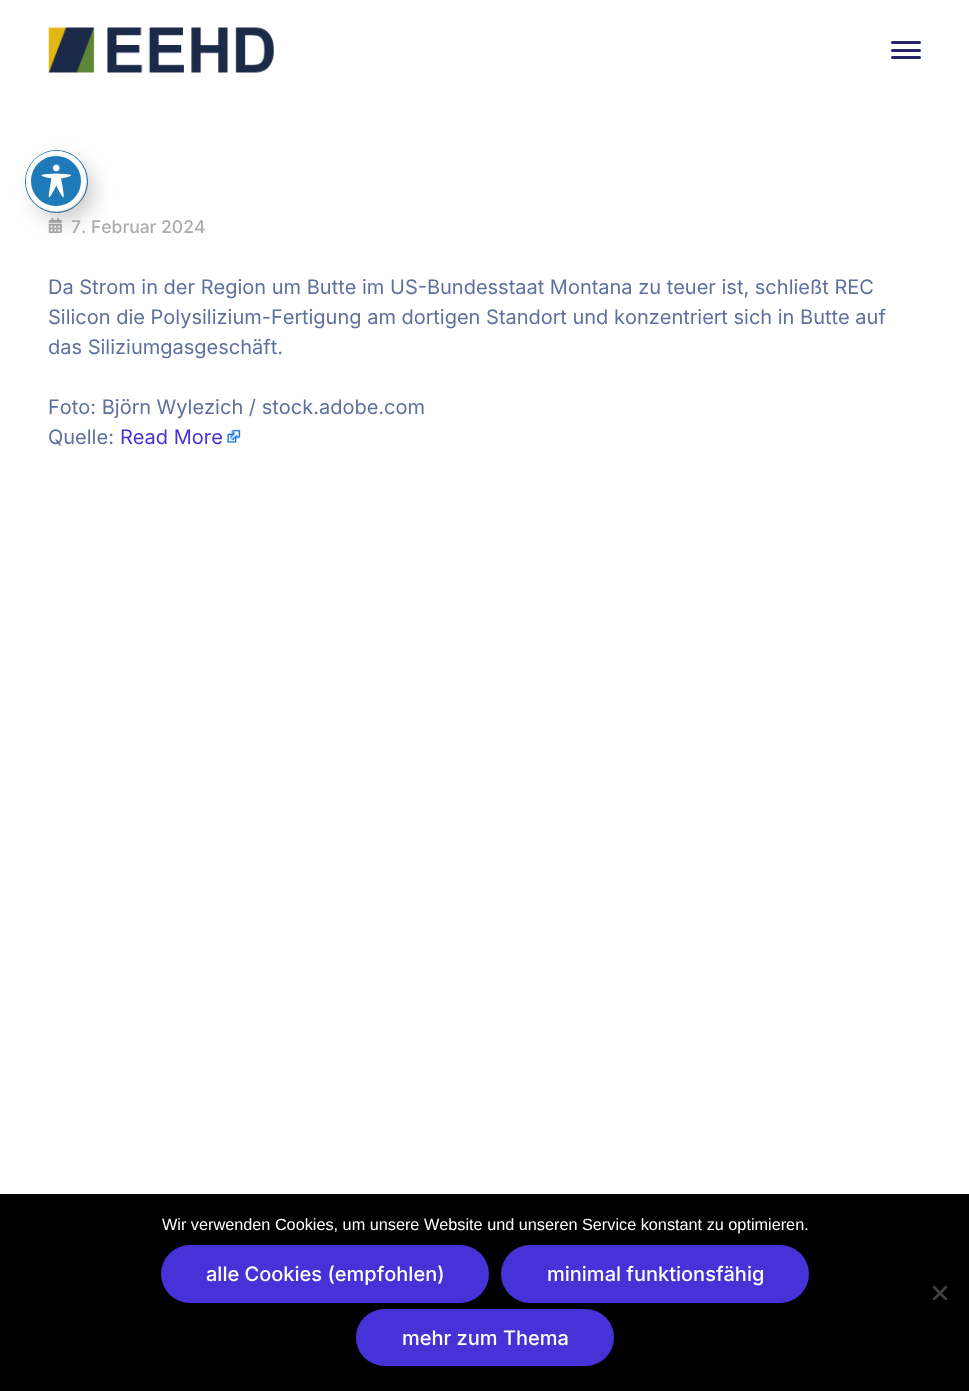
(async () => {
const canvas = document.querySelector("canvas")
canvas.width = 969
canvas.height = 1391
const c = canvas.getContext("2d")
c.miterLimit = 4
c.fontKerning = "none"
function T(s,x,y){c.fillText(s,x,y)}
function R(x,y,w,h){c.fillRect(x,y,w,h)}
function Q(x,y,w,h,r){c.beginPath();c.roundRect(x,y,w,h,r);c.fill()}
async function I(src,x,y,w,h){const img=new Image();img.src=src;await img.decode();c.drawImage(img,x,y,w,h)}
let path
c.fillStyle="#fff"
R(0,0,969,1391)
c.beginPath()
c.arc(56.5,181.5,31,0,7)
c.strokeStyle="#1e7ab9"
c.stroke()
await I("3.png",48,218,14,16)
c.fillStyle="#00000033"
c.filter="blur(10px)"
c.beginPath()
c.roundRect(34,161,60,60,30)
c.fill()
c.filter="none"
c.fillStyle="#1e7ab9"
c.beginPath()
c.arc(56,181,27.5,0,7)
c.fill()
c.strokeStyle="#fff"
c.lineWidth=5
c.stroke()
await I("1.png",41,164,30,34)
await I("2.png",48,27,226,46)
c.fillStyle="#26256c"
Q(891,41,30,3,1.5)
Q(891,49,30,3,1.5)
Q(891,56,30,3,1.5)
c.font="500 17.5px Inter"
c.fillStyle="#acacac"
T("7. Februar 2024",71,233)
c.font="20px Inter"
c.fillStyle="#5e709d"
T("Da Strom in der Region um Butte im US-Bundesstaat Montana zu teuer ist, schließt REC",48,294)
T("Silicon die Polysilizium-Fertigung am dortigen Standort und konzentriert sich in Butte auf",48,324)
T("das Siliziumgasgeschäft.",48,354)
T("Foto: Björn Wylezich / stock.adobe.com",48,414)
T("Quelle:",48,444)
c.fillStyle="#4732d7"
T("Read More",120,444)
await I("4.png",227,429,14,14)
c.fillStyle="#000"
R(0,1194,969,197)
c.font="16.25px Liberation Sans"
c.fillStyle="#fff"
T("Wir verwenden Cookies, um unsere Website und unseren Service konstant zu optimieren.",162,1230)
c.fillStyle="#4732d7"
Q(161,1245,328,58,29)
c.font="500 20px Inter"
c.fillStyle="#fff"
T("alle Cookies (empfohlen)",206,1281)
c.fillStyle="#4732d7"
Q(501,1245,308,58,29)
c.fillStyle="#fff"
T("minimal funktionsfähig",547,1281)
c.fillStyle="#4732d7"
Q(356,1309,258,57,28.5)
c.fillStyle="#fff"
T("mehr zum Thema",402,1345)
c.fillStyle="#404040"
path = new Path2D("M945.5 1285.5l2 2l-13 13l-2-1.5z")
c.fill(path)
path = new Path2D("M932.5 1287.5l2-2l13 13.5l-2 1.5z")
c.fill(path)
})()
